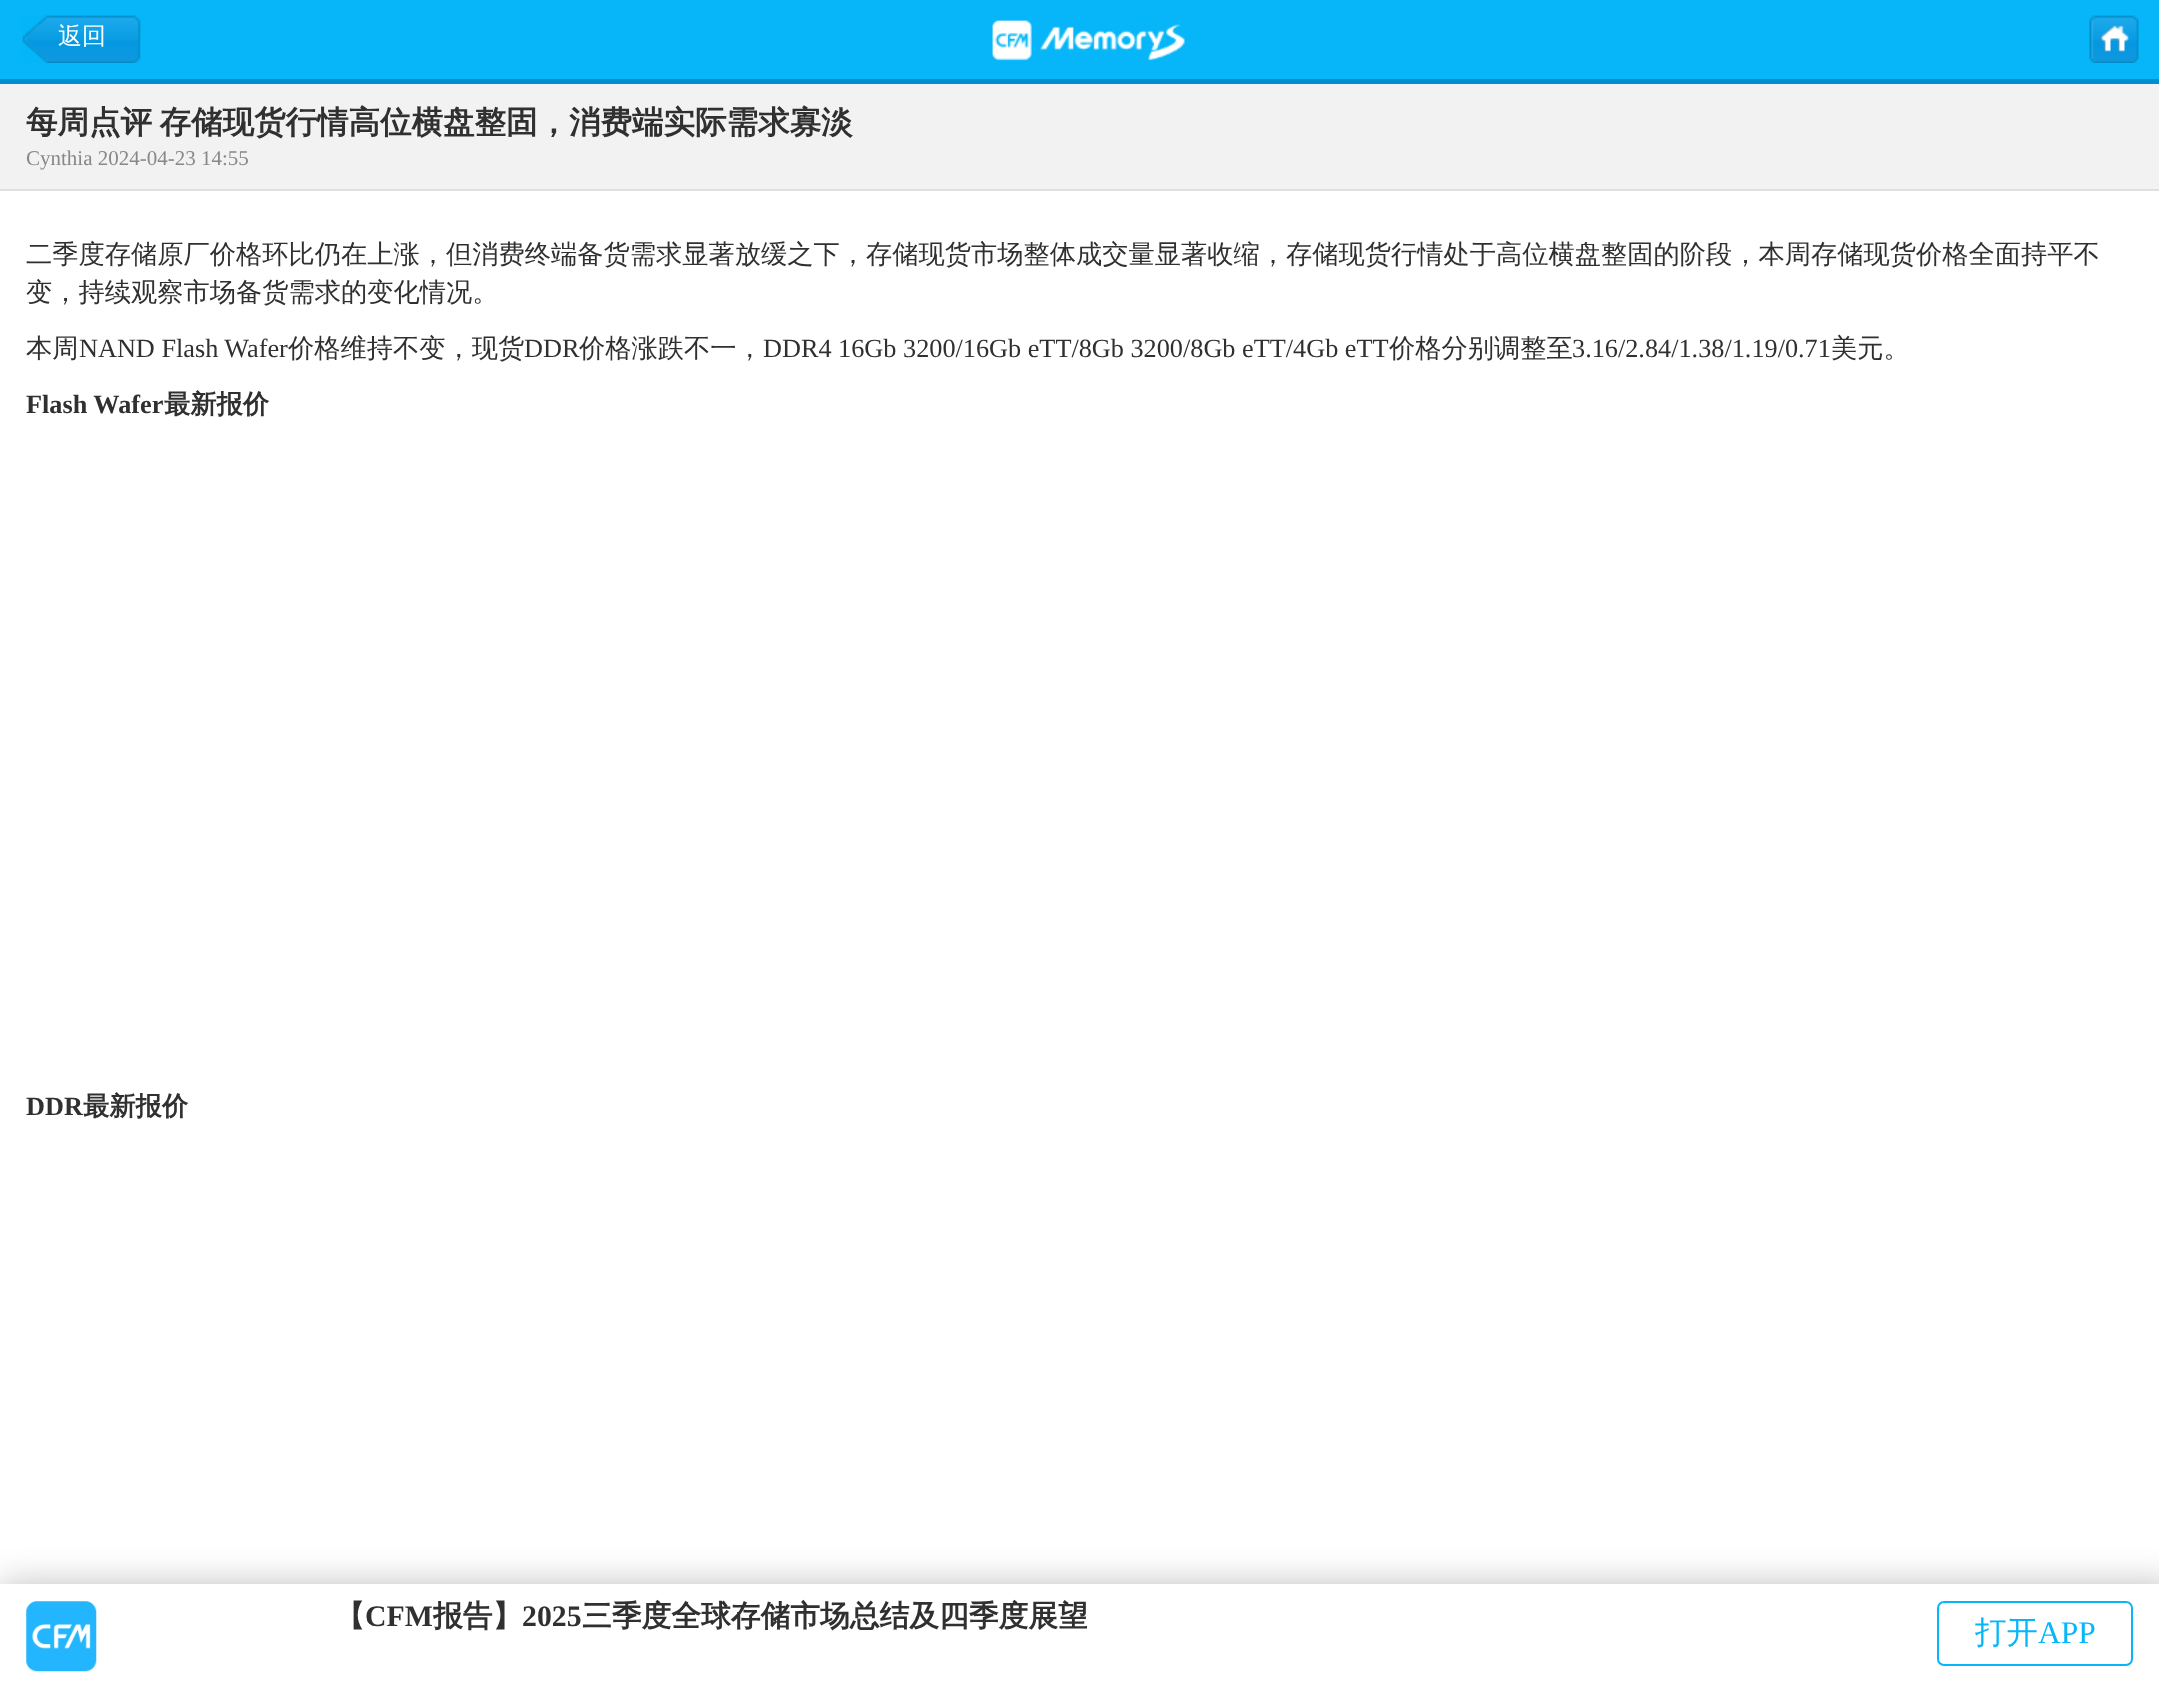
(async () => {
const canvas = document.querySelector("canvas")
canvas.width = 2159
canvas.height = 1688
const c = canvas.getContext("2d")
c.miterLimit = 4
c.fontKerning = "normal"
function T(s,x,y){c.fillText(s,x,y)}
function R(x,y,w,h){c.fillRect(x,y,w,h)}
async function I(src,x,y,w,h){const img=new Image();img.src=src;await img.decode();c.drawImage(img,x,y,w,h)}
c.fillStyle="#f2f2f2"
R(0,0,2159,1688)
c.fillStyle="#06b6f9"
R(0,0,2159,79)
c.fillStyle="#008fcc"
R(0,79,2159,5)
await I("1.png",22,15,119,48)
c.font="500 24px WenQuanYi Zen Hei"
c.fillStyle="#fff"
T("返回",58,44)
await I("2.png",2089,15,50,48)
await I("3.png",992,20,193,41)
c.fillStyle="#dfdfdf"
R(0,189,2159,2)
c.wordSpacing="-2px"
c.font="bold 31.5px WenQuanYi Zen Hei"
c.fillStyle="#303030"
T("每周点评 存储现货行情高位横盘整固，消费端实际需求寡淡",26,133)
c.wordSpacing="0px"
c.font="21px Liberation Serif"
c.fillStyle="#888"
T("Cynthia 2024-04-23 14:55",26,165)
c.fillStyle="#fff"
R(0,191,2159,1497)
c.font="500 26.25px WenQuanYi Zen Hei"
c.fillStyle="#303030"
T("二季度存储原厂价格环比仍在上涨，但消费终端备货需求显著放缓之下，存储现货市场整体成交量显著收缩，存储现货行情处于高位横盘整固的阶段，本周存储现货价格全面持平不",26,263)
T("变，持续观察市场备货需求的变化情况。",26,301)
T("本周",26,357)
c.font="26.25px Liberation Serif"
T("NAND Flash Wafer",79,357)
c.font="500 26.25px WenQuanYi Zen Hei"
T("价格维持不变，现货",288,357)
c.font="26.25px Liberation Serif"
T("DDR",524,357)
c.font="500 26.25px WenQuanYi Zen Hei"
T("价格涨跌不一，",579,357)
c.font="26.25px Liberation Serif"
T("DDR4 16Gb 3200/16Gb eTT/8Gb 3200/8Gb eTT/4Gb eTT",763,357)
c.font="500 26.25px WenQuanYi Zen Hei"
T("价格分别调整至",1389,357)
c.font="26.25px Liberation Serif"
T("3.16/2.84/1.38/1.19/0.71",1572,357)
c.font="500 26.25px WenQuanYi Zen Hei"
T("美元。",1831,357)
c.font="bold 26.25px Liberation Serif"
T("Flash Wafer",26,413)
c.font="bold 26.25px WenQuanYi Zen Hei"
T("最新报价",164,413)
c.font="bold 26.25px Liberation Serif"
T("DDR",26,1115)
c.font="bold 26.25px WenQuanYi Zen Hei"
T("最新报价",83,1115)
c.save()
c.beginPath()
c.rect(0,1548,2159,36)
c.clip()
c.fillStyle="#bfbfbf"
c.filter="blur(17.5px)"
c.beginPath()
c.rect(0,1584,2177,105)
c.fill()
c.filter="none"
c.restore()
await I("4.png",26,1601,71,71)
c.font="bold 29.75px WenQuanYi Zen Hei"
T("【",335,1626)
c.font="bold 29.75px Liberation Serif"
T("CFM",365,1626)
c.font="bold 29.75px WenQuanYi Zen Hei"
T("报告】",433,1626)
c.font="bold 29.75px Liberation Serif"
T("2025",522,1626)
c.font="bold 29.75px WenQuanYi Zen Hei"
T("三季度全球存储市场总结及四季度展望",582,1626)
c.beginPath()
c.roundRect(1938,1602,194,63,6)
c.strokeStyle="#06b6f9"
c.lineWidth=2
c.stroke()
c.font="500 31.5px WenQuanYi Zen Hei"
c.fillStyle="#06b6f9"
T("打开",1975,1643)
c.font="31.5px Liberation Serif"
T("APP",2038,1643)
})()
